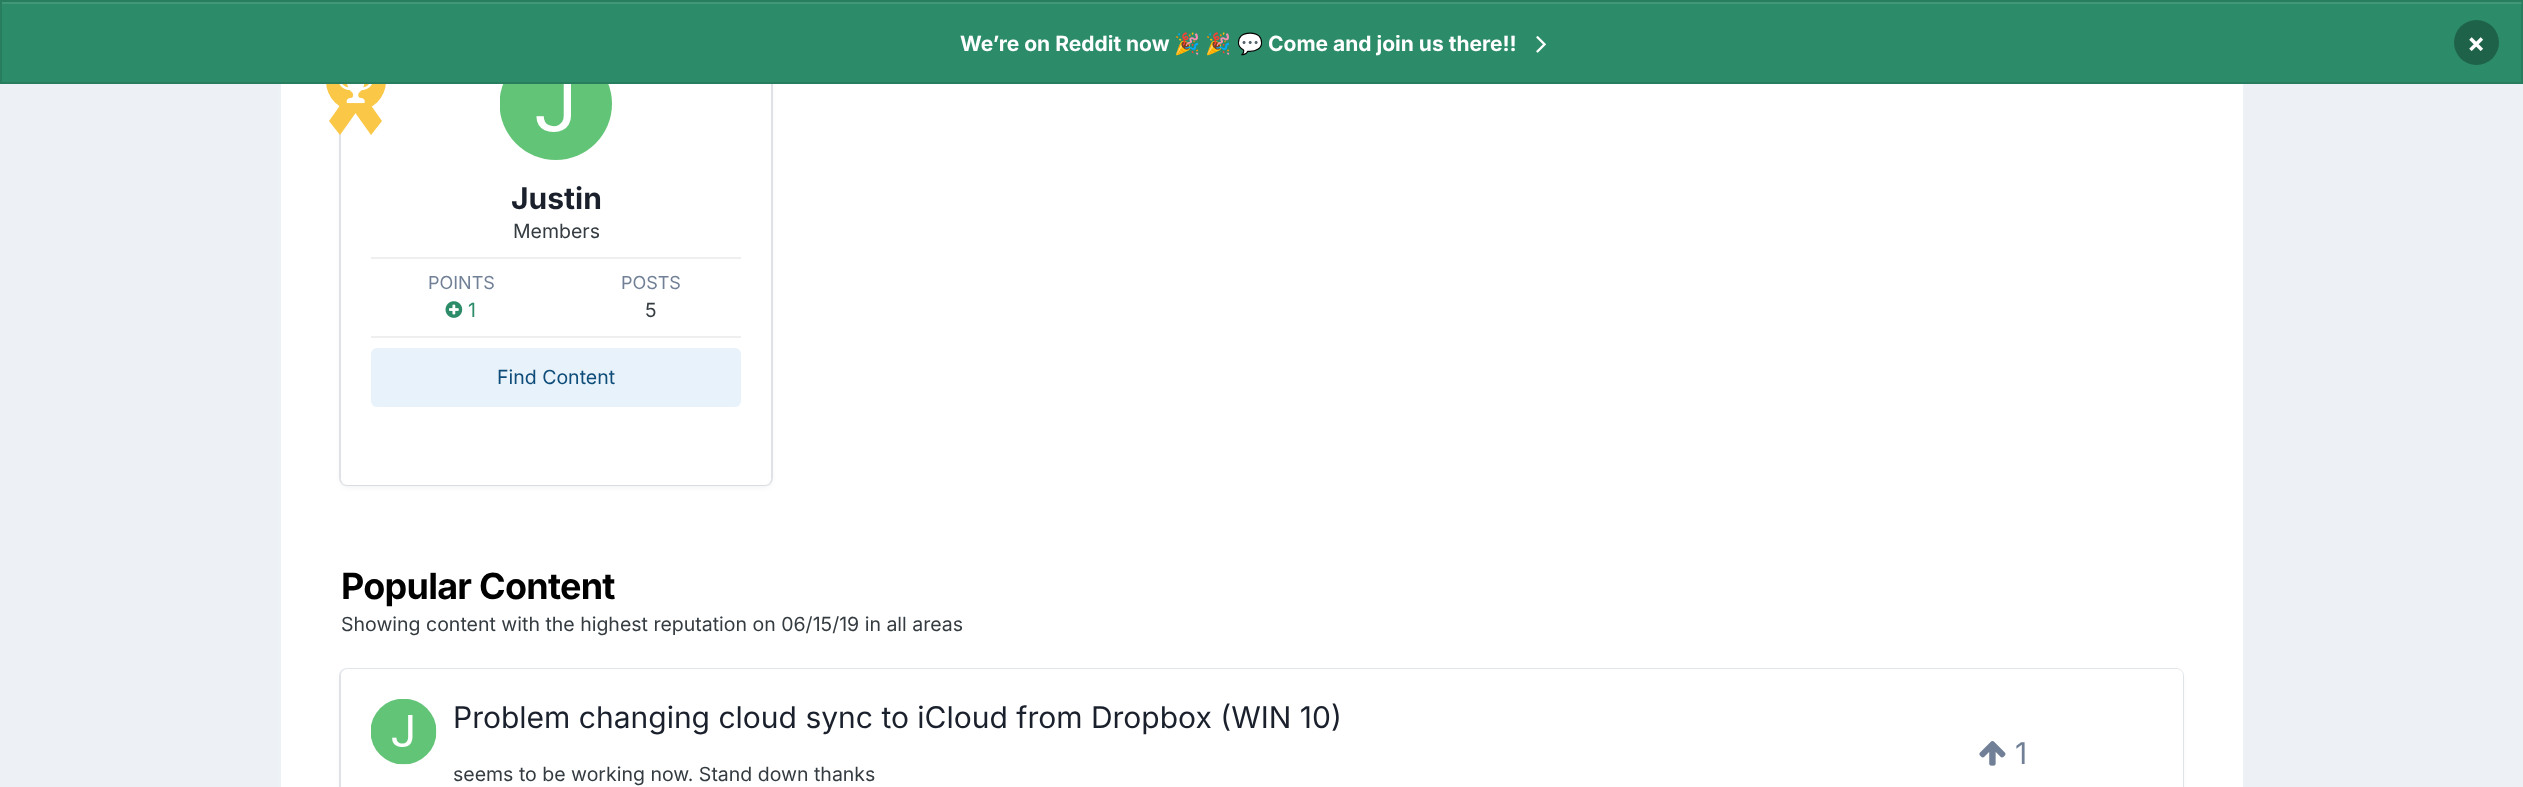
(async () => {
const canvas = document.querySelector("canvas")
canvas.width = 2523
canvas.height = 787
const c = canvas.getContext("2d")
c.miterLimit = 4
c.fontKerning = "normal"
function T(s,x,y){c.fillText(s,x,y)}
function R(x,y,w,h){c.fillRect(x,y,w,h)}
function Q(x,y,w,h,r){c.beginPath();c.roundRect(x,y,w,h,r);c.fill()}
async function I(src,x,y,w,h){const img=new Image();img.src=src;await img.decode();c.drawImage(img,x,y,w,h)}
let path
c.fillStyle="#edf0f4"
R(0,0,2523,787)
c.fillStyle="#fff"
R(281,84,1962,703)
c.fillStyle="#2d37481a"
c.filter="blur(3px)"
c.beginPath()
c.roundRect(342,71,428,415,5)
c.fill()
c.filter="none"
c.beginPath()
c.roundRect(340,66,432,419,7)
c.strokeStyle="#71809633"
c.lineWidth=2
c.stroke()
c.fillStyle="#fff"
Q(341,66,430,419,6)
c.fillStyle="#fac746"
c.beginPath()
c.arc(356,81,30,0,7)
c.fill()
path = new Path2D("M356 83l11 14l-27 38l-11-14z")
c.fill(path)
path = new Path2D("M344 97l11-14l27 38l-11 14z")
c.fill(path)
c.beginPath()
c.roundRect(496,45,120,119,59.5)
c.strokeStyle="#fff"
c.lineWidth=8
c.stroke()
c.fillStyle="#fff"
Q(500,48,112,113,56)
c.fillStyle="#2c8c69"
R(0,0,2523,84)
c.fillStyle="#419878"
R(2,2,2520,2)
c.strokeStyle="#0000001a"
c.lineWidth=2
c.strokeRect(1,1,2521,82)
c.font="bold 21px Inter"
c.fillStyle="#fff"
T("We’re on Reddit now",960,51)
c.font="bold 21px Noto Color Emoji"
T("🎉",1174,51)
T("🎉",1205,51)
T("💬",1237,51)
c.font="bold 21px Inter"
T("Come and join us there!!",1268,51)
await I("1.png",1536,36,10,17)
c.fillStyle="#1f624a"
c.beginPath()
c.arc(2476.5,42.5,22.5,0,7)
c.fill()
c.font="bold 27px Inter"
c.fillStyle="#fff"
T("×",2467,52)
c.fillStyle="#edf2f7"
R(2243,84,2,703)
R(279,84,2,703)
await I("2.png",339,84,33,20)
await I("3.png",500,84,112,76)
c.font="bold 30px Inter"
c.fillStyle="#1a202c"
T("Justin",511,209)
c.font="19.5px Inter"
c.fillStyle="#353c41"
T("Members",513,238)
c.fillStyle="#efeff0"
R(371,257,370,2)
c.font="18px Inter"
c.fillStyle="#718096"
T("POINTS",428,289)
await I("4.png",445,301,18,17)
c.font="19.5px Inter"
c.fillStyle="#2c8c69"
T("1",468,317)
c.font="18px Inter"
c.fillStyle="#718096"
T("POSTS",621,289)
c.font="19.5px Inter"
c.fillStyle="#353c41"
T("5",645,317)
c.fillStyle="#efeff0"
R(371,336,370,2)
c.fillStyle="#e8f2fa"
Q(371,348,370,59,6)
c.fillStyle="#0e4c79"
T("Find Content",497,384)
c.letterSpacing="-0.75px"
c.font="bold 36px Inter"
c.fillStyle="#000"
T("Popular Content",341,599)
c.letterSpacing="0px"
c.font="19.5px Inter"
c.fillStyle="#353c41"
T("Showing content with the highest reputation on 06/15/19 in all areas",341,631)
c.fillStyle="#2d37481a"
c.filter="blur(3px)"
c.beginPath()
c.roundRect(342,674,1839,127,5)
c.fill()
c.filter="none"
c.beginPath()
c.roundRect(340,669,1843,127,7)
c.strokeStyle="#71809633"
c.stroke()
c.fillStyle="#fff"
Q(341,669,1842,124,6)
await I("5.png",371,699,66,66)
c.font="30px Inter"
c.fillStyle="#1a202c"
T("Problem changing cloud sync to iCloud from Dropbox (WIN 10)",453,728)
c.font="19.5px Inter"
c.fillStyle="#353c41"
T("seems to be working now. Stand down thanks",453,781)
await I("6.png",1979,741,27,25)
c.font="30px Inter"
c.fillStyle="#718096"
T("1",2015,764)
})()
